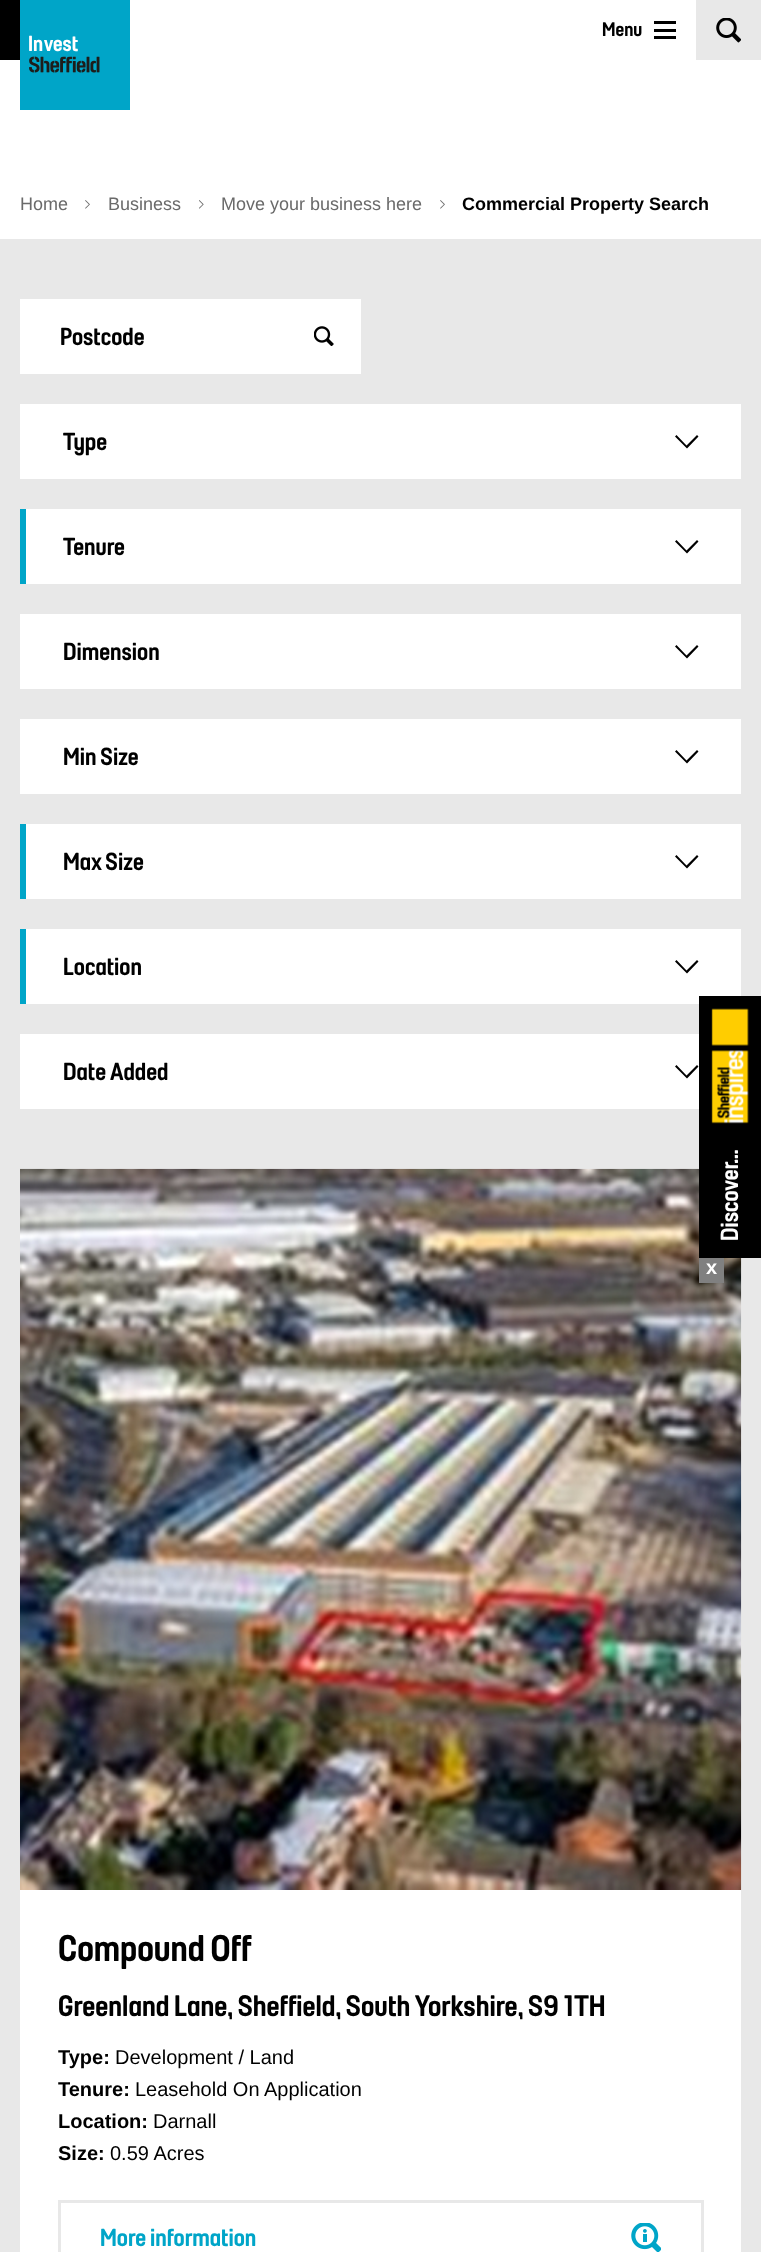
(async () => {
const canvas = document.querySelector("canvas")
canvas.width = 761
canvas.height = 2252
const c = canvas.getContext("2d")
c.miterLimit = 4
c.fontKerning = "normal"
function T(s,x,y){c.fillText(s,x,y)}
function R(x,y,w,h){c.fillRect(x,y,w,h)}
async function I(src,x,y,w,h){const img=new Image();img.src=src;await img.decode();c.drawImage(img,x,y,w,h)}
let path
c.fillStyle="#fff"
R(0,0,761,2252)
c.fillStyle="#000"
R(0,0,20,60)
c.font="20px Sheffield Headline"
T("Menu",602,36)
R(654,29,22,3)
R(654,21,22,3)
R(654,36,22,3)
c.fillStyle="#e8e8e8"
R(696,0,65,60)
await I("1.png",716,18,25,25)
await I("2.png",20,0,110,110)
c.font="22px Sheffield Headline"
c.fillStyle="#fff"
T("In",28,51)
T("v",44,51)
T("est",53,51)
c.font="18px Liberation Sans"
c.fillStyle="#6a6a6a"
T("Home",20,210)
await I("3.png",85,200,5,9)
T("Business",108,210)
await I("4.png",199,200,5,9)
T("Move your business here",221,210)
await I("3.png",440,200,5,9)
c.font="bold 18px Liberation Sans"
c.fillStyle="#000"
T("Commercial Property Search",462,210)
c.fillStyle="#e8e8e8"
R(0,239,761,2013)
c.fillStyle="#fff"
R(20,299,341,75)
c.font="25px Sheffield Headline"
c.fillStyle="#000"
T("Postcode",60,345)
await I("5.png",314,326,20,20)
c.fillStyle="#fff"
R(20,404,721,75)
c.fillStyle="#000"
T("Type",63,450)
path = new Path2D("M675 436.5l1.5-1.5l10 10.5l10.5-10.5l1.5 1.5l-11.5 12l-12-12")
c.fill(path,"evenodd")
c.fillStyle="#00a5c8"
R(20,509,6,75)
c.fillStyle="#fff"
R(26,509,715,75)
c.fillStyle="#000"
T("Tenure",63,555)
path = new Path2D("M675 541.5l1.5-1.5l10 10.5l10.5-10.5l1.5 1.5l-11.5 12l-12-12")
c.fill(path,"evenodd")
c.fillStyle="#fff"
R(20,614,721,75)
c.fillStyle="#000"
T("Dimension",63,660)
path = new Path2D("M675 646.5l1.5-1.5l10 10.5l10.5-10.5l1.5 1.5l-11.5 12l-12-12")
c.fill(path,"evenodd")
c.fillStyle="#fff"
R(20,719,721,75)
c.fillStyle="#000"
T("Min Size",63,765)
path = new Path2D("M675 751.5l1.5-1.5l10 10.5l10.5-10.5l1.5 1.5l-11.5 12l-12-12")
c.fill(path,"evenodd")
c.fillStyle="#00a5c8"
R(20,824,6,75)
c.fillStyle="#fff"
R(26,824,715,75)
c.fillStyle="#000"
T("Max Size",63,870)
path = new Path2D("M675 856.5l1.5-1.5l10 10.5l10.5-10.5l1.5 1.5l-11.5 12l-12-12")
c.fill(path,"evenodd")
c.fillStyle="#00a5c8"
R(20,929,6,75)
c.fillStyle="#fff"
R(26,929,715,75)
c.fillStyle="#000"
T("Location",63,975)
path = new Path2D("M675 961.5l1.5-1.5l10 10.5l10.5-10.5l1.5 1.5l-11.5 12l-12-12")
c.fill(path,"evenodd")
c.fillStyle="#fff"
R(20,1034,679,75)
c.fillStyle="#000"
T("Date Added",63,1080)
path = new Path2D("M675 1066.5l1.5-1.5l10 10.5l10.5-10.5l1.5 1.5l-11.5 12l-12-12")
c.fill(path,"evenodd")
await I("6.png",20,1168,722,722)
c.fillStyle="#fff"
R(20,1890,721,362)
c.font="37.5px Sheffield Headline"
c.fillStyle="#000"
T("Compound Off",58,1961)
c.font="30px Sheffield Headline"
T("Greenland Lane, Sheffield, South Yorkshire, S9 1TH",58,2016)
c.font="bold 20px Liberation Sans"
T("Type:",58,2064)
c.font="20px Liberation Sans"
T("Development / Land",115,2064)
c.font="bold 20px Liberation Sans"
T("Tenure:",58,2096)
c.font="20px Liberation Sans"
T("Leasehold On Application",135,2096)
c.font="bold 20px Liberation Sans"
T("Location:",58,2128)
c.font="20px Liberation Sans"
T("Darnall",153,2128)
c.font="bold 20px Liberation Sans"
T("Size:",58,2160)
c.font="20px Liberation Sans"
T("0.59 Acres",110,2160)
c.strokeStyle="#e8e8e8"
c.lineWidth=3
c.strokeRect(59.5,2201.5,643,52)
c.font="25px Sheffield Headline"
c.fillStyle="#00a5c8"
T("More information",100,2246)
await I("7.png",631,2223,30,29)
c.fillStyle="#000"
R(699,996,62,262)
await I("8.png",711,1008,38,116)
c.fillStyle="#fff"
c.save()
c.translate(738,1241)
c.rotate(-90 * Math.PI / 180)
c.fillText("Discover...",0,0)
c.restore()
c.fillStyle="#808080"
R(699,1258,25,25)
c.font="bold 20px Liberation Sans"
c.fillStyle="#fff"
T("x",706,1274)
})()
